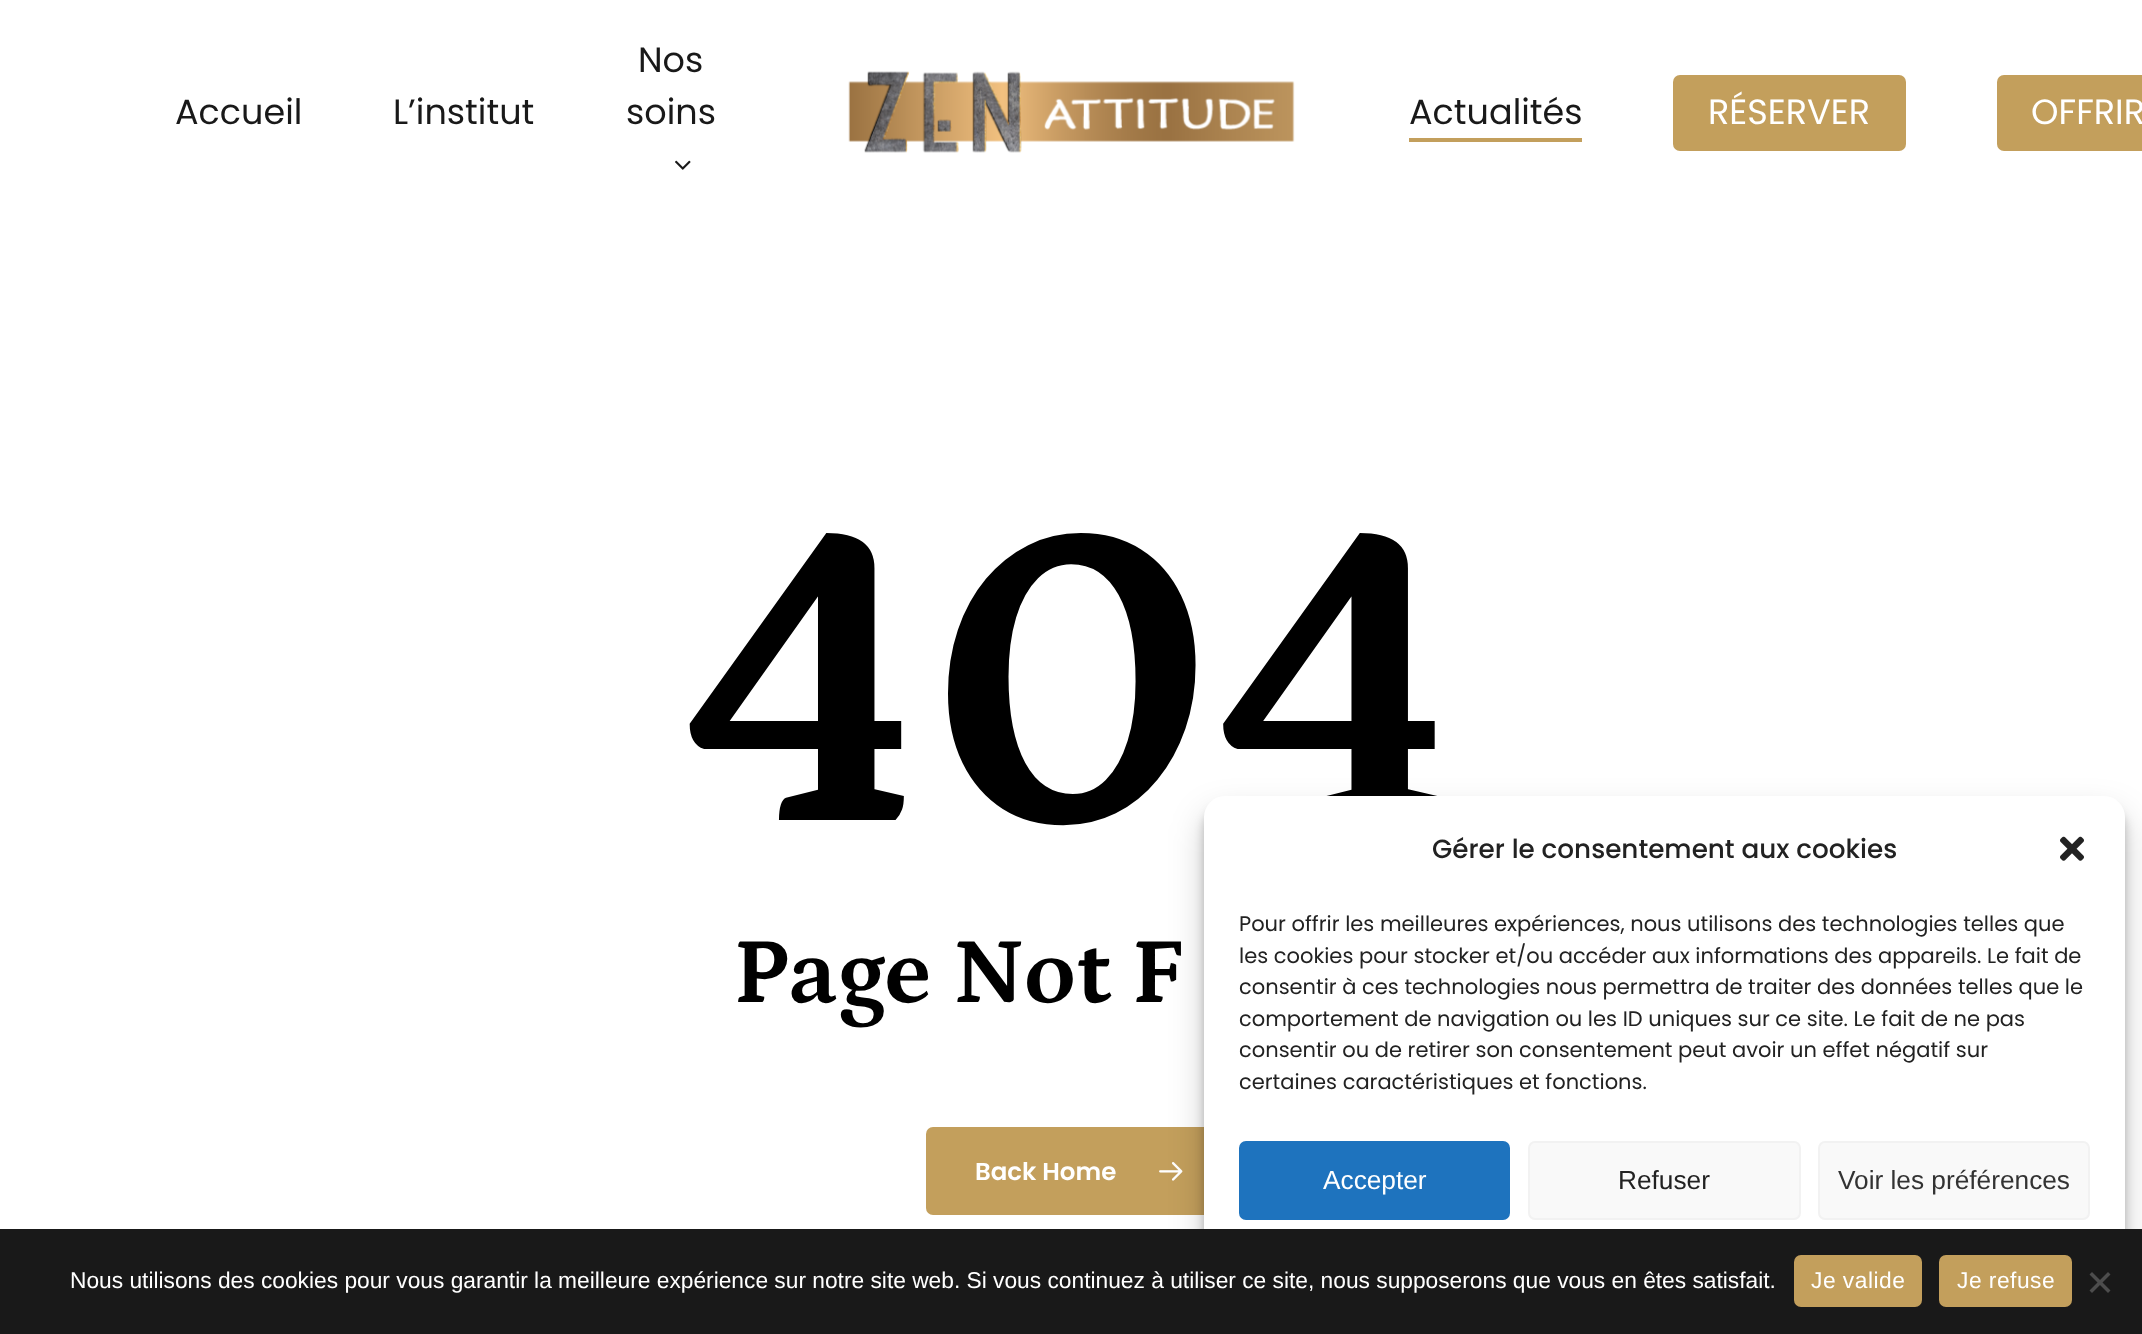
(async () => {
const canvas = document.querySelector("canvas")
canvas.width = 2142
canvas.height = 1334
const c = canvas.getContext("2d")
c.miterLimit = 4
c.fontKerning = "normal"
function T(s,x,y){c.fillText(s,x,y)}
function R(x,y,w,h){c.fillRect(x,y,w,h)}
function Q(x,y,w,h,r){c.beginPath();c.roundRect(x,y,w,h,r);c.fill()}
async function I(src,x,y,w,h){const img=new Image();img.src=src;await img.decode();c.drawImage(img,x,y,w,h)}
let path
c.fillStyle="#fff"
R(0,0,2142,1334)
c.font="35px Poppins"
c.fillStyle="#191919"
T("Accueil",175,124)
T("L’institut",393,124)
T("Nos",638,72)
T("soins",626,124)
await I("1.png",675,160,16,10)
T("Actualités",1409,124)
c.fillStyle="#c39f5c"
R(1409,138,173,4)
Q(1673,75,233,76,7)
c.fillStyle="#fff"
T("RÉSERVER",1708,124)
c.fillStyle="#c39f5c"
Q(1997,75,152,76,7)
c.fillStyle="#fff"
T("OFFRIR",2031,124)
await I("2.png",848,71,447,82)
c.font="bold 438px Petrona"
c.fillStyle="#000"
T("404",687,820)
c.font="bold 94.5px Petrona"
T("Page Not F",733,1002)
c.fillStyle="#c39f5c"
Q(926,1127,290,88,7)
c.font="600 24.5px Poppins"
c.fillStyle="#fff"
T("Back Home",975,1180)
await I("3.png",1159,1162,24,19)
c.fillStyle="#0000003b"
c.filter="blur(5px)"
c.beginPath()
c.roundRect(1204,807,921,521,21)
c.fill()
c.filter="none"
c.fillStyle="#00000030"
c.filter="blur(17.5px)"
c.beginPath()
c.roundRect(1204,814,921,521,21)
c.fill()
c.filter="none"
c.fillStyle="#fff"
Q(1204,796,921,522,21)
c.font="500 26.25px Poppins"
c.fillStyle="#222"
T("Gérer le consentement aux cookies",1432,858)
await I("4.png",2060,836,24,25)
c.font="21px Poppins"
T("Pour offrir les meilleures expériences, nous utilisons des technologies telles que",1239,931)
T("les cookies pour stocker et/ou accéder aux informations des appareils. Le fait de",1239,963)
T("consentir à ces technologies nous permettra de traiter des données telles que le",1239,994)
T("comportement de navigation ou les ID uniques sur ce site. Le fait de ne pas",1239,1026)
T("consentir ou de retirer son consentement peut avoir un effet négatif sur",1239,1057)
T("certaines caractéristiques et fonctions.",1239,1089)
c.fillStyle="#1e73be"
c.beginPath()
c.roundRect(1240,1142,269,77,6)
c.fill()
c.strokeStyle="#1e73be"
c.lineWidth=2
c.stroke()
c.font="26.25px Liberation Sans"
c.fillStyle="#fff"
T("Accepter",1323,1189)
c.fillStyle="#f9f9f9"
c.beginPath()
c.roundRect(1529,1142,271,77,6)
c.fill()
c.strokeStyle="#f2f2f2"
c.stroke()
c.fillStyle="#222"
T("Refuser",1618,1189)
c.fillStyle="#f9f9f9"
c.beginPath()
c.roundRect(1819,1142,270,77,6)
c.fill()
c.stroke()
c.fillStyle="#333"
T("Voir les préférences",1838,1189)
c.fillStyle="#191919"
R(0,1229,2142,105)
c.font="22.75px Liberation Sans"
c.fillStyle="#fff"
T("Nous utilisons des cookies pour vous garantir la meilleure expérience sur notre site web. Si vous continuez à utiliser ce site, nous supposerons que vous en êtes satisfait.",70,1288)
c.fillStyle="#c39f5c"
Q(1794,1255,128,52,7)
c.letterSpacing="0.5px"
c.fillStyle="#fff"
T("Je valide",1811,1288)
c.fillStyle="#c39f5c"
Q(1939,1255,133,52,7)
c.fillStyle="#fff"
T("Je refuse",1957,1288)
c.fillStyle="#4d4d4d"
path = new Path2D("M2108 1272l2.5 2.5l-18.5 18.5l-2.5-2.5z")
c.fill(path)
path = new Path2D("M2089.5 1274.5l2.5-2.5l18.5 18.5l-2.5 2.5z")
c.fill(path)
})()
